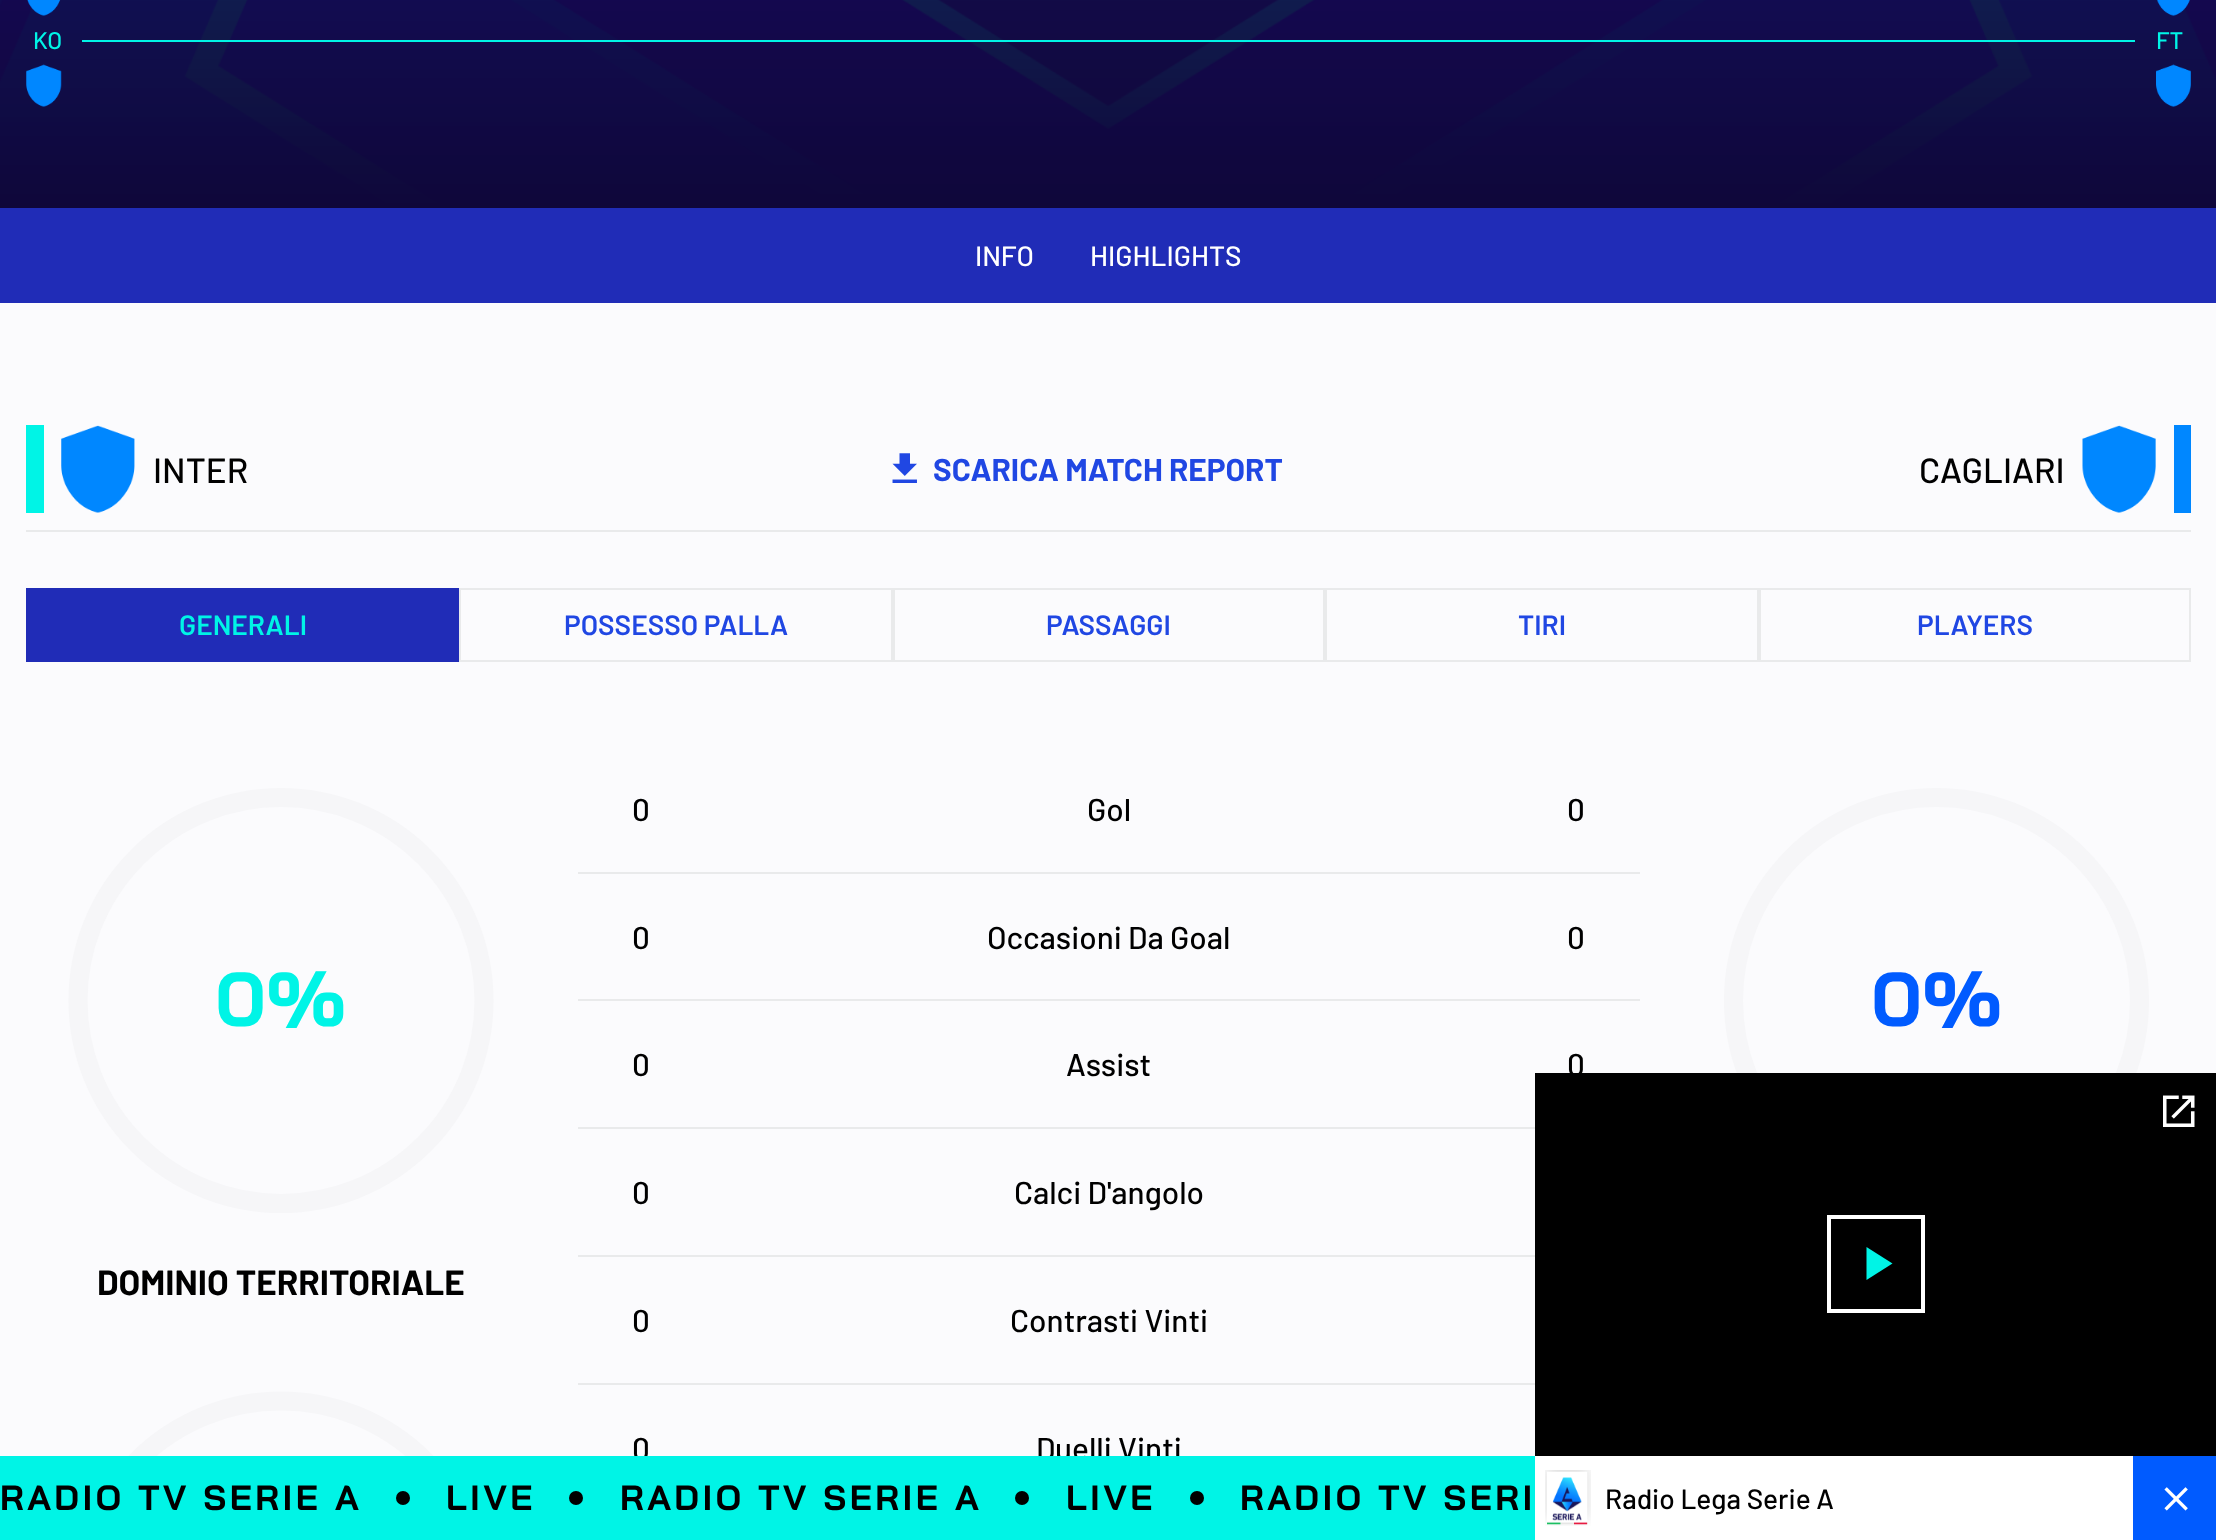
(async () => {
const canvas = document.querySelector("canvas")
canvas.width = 2216
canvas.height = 1540
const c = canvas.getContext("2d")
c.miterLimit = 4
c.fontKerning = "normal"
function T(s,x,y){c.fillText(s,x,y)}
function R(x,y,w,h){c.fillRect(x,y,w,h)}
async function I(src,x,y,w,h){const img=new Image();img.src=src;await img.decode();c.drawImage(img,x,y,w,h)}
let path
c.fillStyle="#fbfbfd"
R(0,0,2216,1540)
await I("1.png",0,0,2216,208)
await I("2.png",27,0,34,16)
await I("3.png",2156,0,34,16)
c.font="500 24px Barlow"
c.fillStyle="#00f4e6"
T("KO",33,49)
T("FT",2156,49)
R(82,40,2053,2)
await I("4.png",26,64,36,43)
await I("5.png",2156,64,35,43)
c.fillStyle="#202cb7"
R(0,208,2216,95)
c.font="500 28px Barlow"
c.fillStyle="#fff"
T("INFO",975,266)
T("HIGHLIGHTS",1090,266)
c.fillStyle="#e9eaeb"
R(26,530,2165,2)
c.fillStyle="#00f4e6"
R(26,425,18,88)
await I("6.png",61,425,74,88)
c.font="500 35px Barlow"
c.fillStyle="#000"
T("INTER",153,483)
await I("7.png",892,453,25,30)
c.font="bold 31.5px Barlow"
c.fillStyle="#2047e3"
T("SCARICA MATCH REPORT",933,481)
c.fillStyle="#0087ff"
R(2174,425,17,88)
c.font="500 35px Barlow"
c.fillStyle="#000"
T("CAGLIARI",1919,483)
await I("8.png",2082,425,74,88)
c.fillStyle="#202cb7"
R(26,588,433,74)
c.font="600 28px Barlow"
c.fillStyle="#00f4e6"
T("GENERALI",179,635)
c.strokeStyle="#e9eaeb"
c.lineWidth=2
c.strokeRect(460,589,432,72)
c.fillStyle="#2047e3"
T("POSSESSO PALLA",564,635)
c.strokeRect(894,589,430,72)
T("PASSAGGI",1046,635)
c.strokeRect(1326,589,432,72)
T("TIRI",1518,635)
c.strokeRect(1760,589,430,72)
T("PLAYERS",1917,635)
c.beginPath()
c.arc(281,1000.5,203,0,7)
c.strokeStyle="#f6f6f8"
c.lineWidth=19.1
c.stroke()
c.font="bold 76px Bai Jamjuree"
c.fillStyle="#00f4e6"
T("0%",215,1026)
c.font="bold 35px Barlow"
c.fillStyle="#000"
T("DOMINIO TERRITORIALE",97,1295)
c.beginPath()
c.arc(281,1604,203,0,7)
c.stroke()
c.fillStyle="#e9eaeb"
R(578,872,1062,2)
c.font="500 31.5px Barlow"
c.fillStyle="#000"
T("0",632,821)
T("Gol",1087,821)
T("0",1567,821)
c.fillStyle="#e9eaeb"
R(578,999,1062,2)
c.fillStyle="#000"
T("0",632,949)
T("Occasioni Da Goal",987,949)
T("0",1567,949)
c.fillStyle="#e9eaeb"
R(578,1127,957,2)
c.fillStyle="#000"
T("0",632,1076)
T("Assist",1066,1076)
T("0",1567,1076)
c.fillStyle="#e9eaeb"
R(578,1255,957,2)
c.fillStyle="#000"
T("0",632,1204)
T("Calci D'angolo",1014,1204)
c.fillStyle="#e9eaeb"
R(578,1383,957,2)
c.fillStyle="#000"
T("0",632,1332)
T("Contrasti Vinti",1010,1332)
T("0",632,1460)
T("Duelli Vinti",1036,1460)
c.beginPath()
c.arc(1936.5,1000.5,203,0,7)
c.stroke()
c.font="bold 76px Bai Jamjuree"
c.fillStyle="#005bff"
T("0%",1871,1026)
c.fillStyle="#00f4e6"
R(0,1456,1535,84)
c.letterSpacing="3.5px"
c.font="bold 35px Bai Jamjuree"
c.fillStyle="#000"
T("RADIO TV SERIE A",0,1510)
c.beginPath()
c.arc(403,1498,7,0,7)
c.fill()
T("LIVE",446,1510)
c.beginPath()
c.arc(576,1498,7,0,7)
c.fill()
T("RADIO TV SERIE A",620,1510)
c.beginPath()
c.arc(1022,1498,7,0,7)
c.fill()
T("LIVE",1066,1510)
c.beginPath()
c.arc(1197,1498,7,0,7)
c.fill()
T("RADIO TV SERI",1240,1510)
R(1535,1073,681,383)
await I("9.png",2163,1095,32,32)
c.strokeStyle="#fff"
c.lineWidth=4
c.strokeRect(1829,1217,94,94)
c.fillStyle="#00f4e6"
path = new Path2D("M1866.5 1247v33l26-16.5z")
c.fill(path)
c.fillStyle="#fff"
R(1535,1456,598,84)
await I("10.png",1545,1470,46,56)
c.letterSpacing="0px"
c.font="500 28px Barlow"
c.fillStyle="#000"
T("Radio Lega Serie A",1605,1509)
c.fillStyle="#005bff"
R(2133,1456,83,84)
await I("11.png",2164,1487,24,24)
})()
